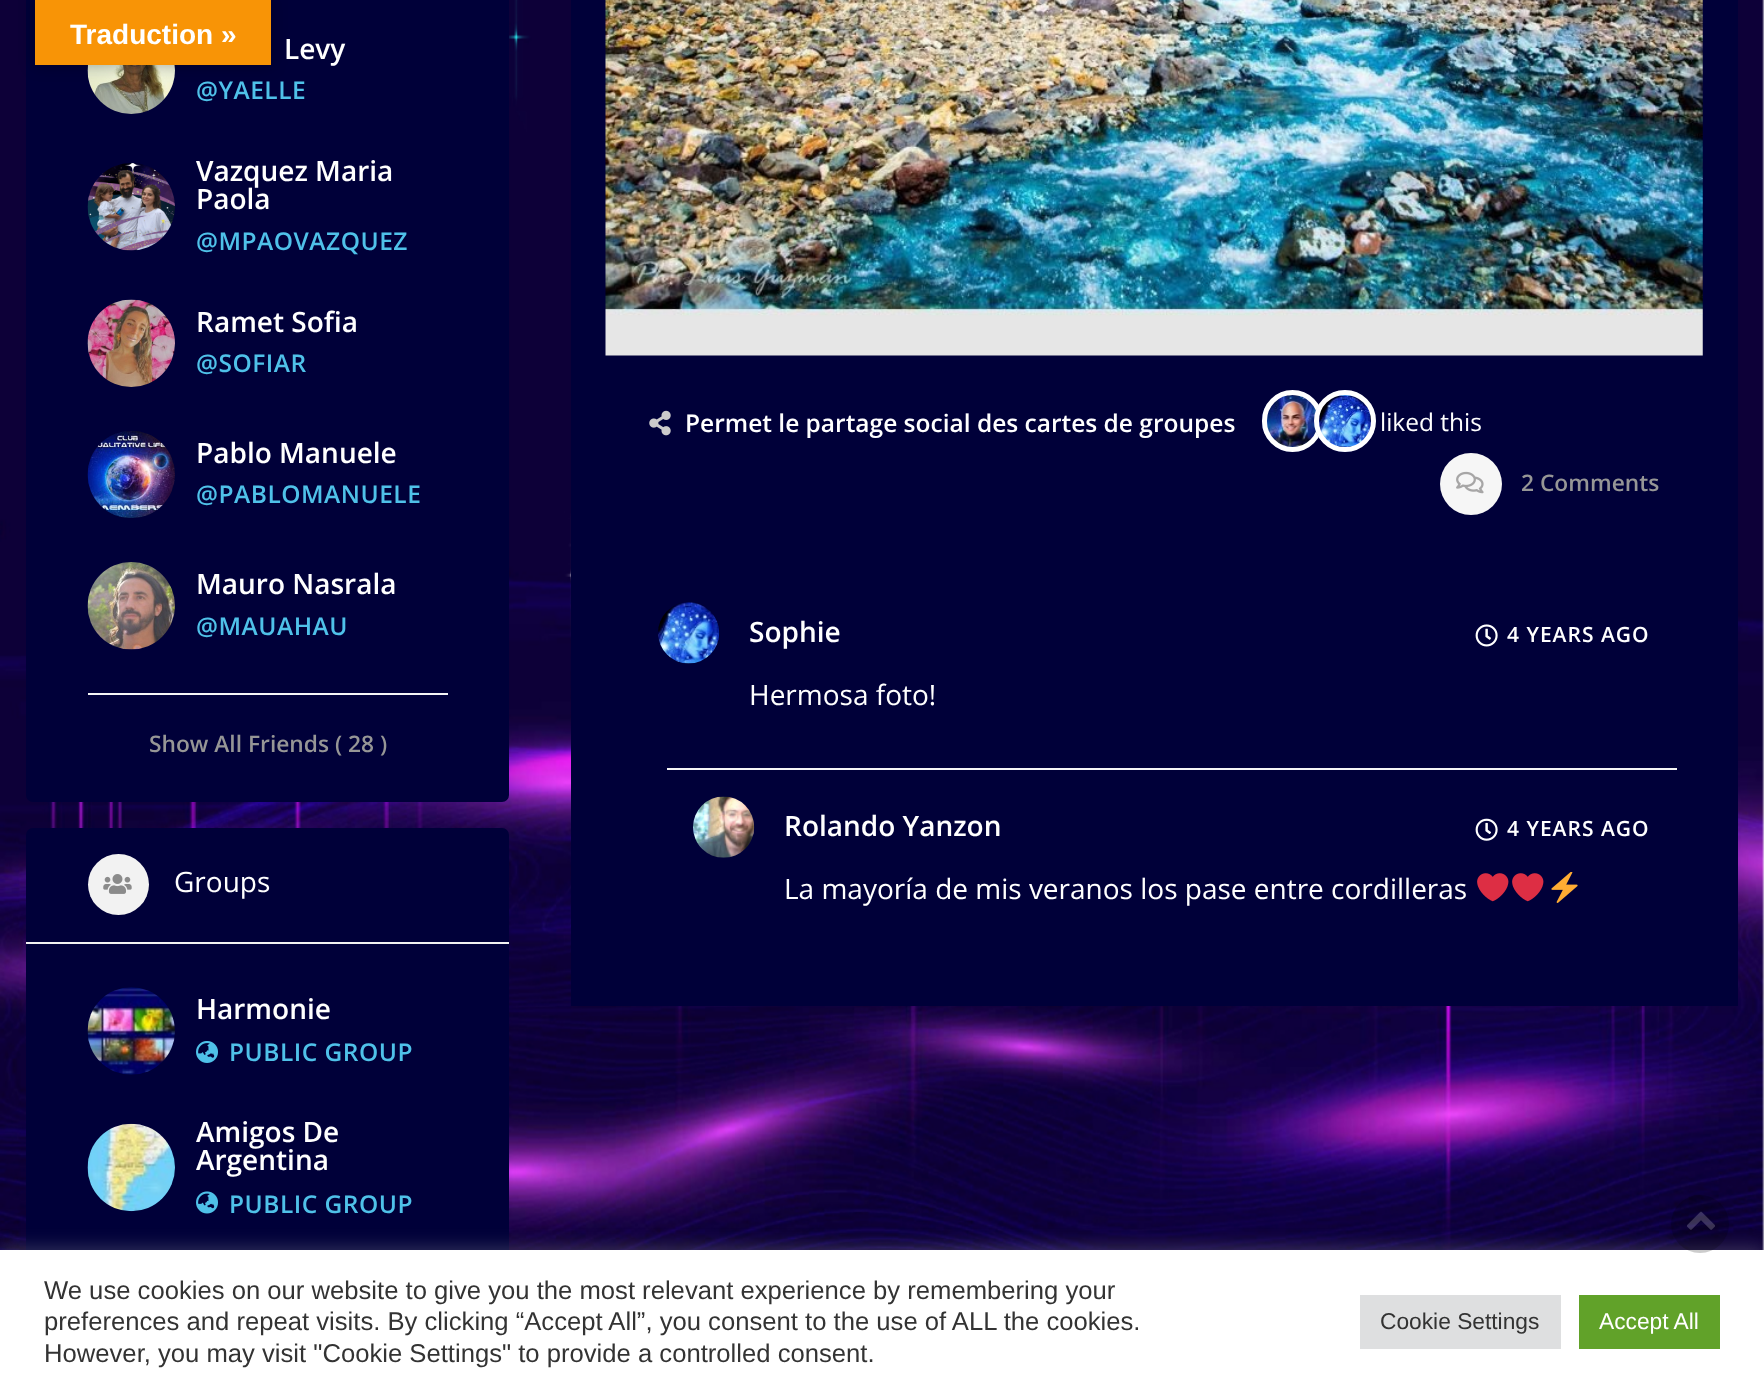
(async () => {
const canvas = document.querySelector("canvas")
canvas.width = 1764
canvas.height = 1393
const c = canvas.getContext("2d")
c.miterLimit = 4
c.fontKerning = "normal"
function T(s,x,y){c.fillText(s,x,y)}
function R(x,y,w,h){c.fillRect(x,y,w,h)}
function Q(x,y,w,h,r){c.beginPath();c.roundRect(x,y,w,h,r);c.fill()}
async function I(src,x,y,w,h){const img=new Image();img.src=src;await img.decode();c.drawImage(img,x,y,w,h)}
c.fillStyle="#fff"
R(0,0,1764,1393)
await I("1.png",0,0,1764,1250)
c.fillStyle="#000039"
Q(26,-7,483,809,7)
await I("2.png",87,65,88,49)
c.fillStyle="#0000004d"
c.filter="blur(8px)"
c.beginPath()
c.rect(35,0,236,65)
c.fill()
c.filter="none"
c.fillStyle="#f89406"
R(35,0,236,65)
c.font="bold 28px Liberation Sans"
c.fillStyle="#fff"
T("Traduction »",70,44)
c.font="600 28px Open Sans"
T("Levy",284,59)
c.letterSpacing="0.5px"
c.font="600 24.5px Open Sans"
c.fillStyle="#4fc1e9"
T("@YAELLE",196,99)
await I("3.png",87,163,88,88)
c.letterSpacing="0px"
c.font="600 28px Open Sans"
c.fillStyle="#fff"
T("Vazquez Maria",196,181)
T("Paola",196,209)
c.letterSpacing="0.5px"
c.font="600 24.5px Open Sans"
c.fillStyle="#4fc1e9"
T("@MPAOVAZQUEZ",196,250)
await I("4.png",87,299,88,88)
c.letterSpacing="0px"
c.font="600 28px Open Sans"
c.fillStyle="#fff"
T("Ramet Sofia",196,332)
c.letterSpacing="0.5px"
c.font="600 24.5px Open Sans"
c.fillStyle="#4fc1e9"
T("@SOFIAR",196,372)
await I("5.png",87,431,88,87)
c.letterSpacing="0px"
c.font="600 28px Open Sans"
c.fillStyle="#fff"
T("Pablo Manuele",196,463)
c.letterSpacing="0.5px"
c.font="600 24.5px Open Sans"
c.fillStyle="#4fc1e9"
T("@PABLOMANUELE",196,503)
await I("6.png",87,562,88,88)
c.letterSpacing="0px"
c.font="600 28px Open Sans"
c.fillStyle="#fff"
T("Mauro Nasrala",196,594)
c.letterSpacing="0.5px"
c.font="600 24.5px Open Sans"
c.fillStyle="#4fc1e9"
T("@MAUAHAU",196,635)
c.fillStyle="#f5f5f5"
R(88,693,360,2)
c.letterSpacing="0px"
c.font="600 22.75px Open Sans"
c.fillStyle="#969696"
T("Show All Friends ( 28 )",149,752)
c.fillStyle="#000039"
Q(26,828,483,434,7)
c.fillStyle="#f2f2f2"
R(26,942,483,2)
c.beginPath()
c.arc(118.5,884.5,30.5,0,7)
c.fill()
await I("7.png",103,874,29,20)
c.font="28px Open Sans"
c.fillStyle="#fff"
T("Groups",174,892)
await I("8.png",87,987,88,88)
c.font="600 28px Open Sans"
T("Harmonie",196,1019)
await I("9.png",196,1041,22,22)
c.letterSpacing="0.5px"
c.font="600 24.5px Open Sans"
c.fillStyle="#4fc1e9"
T("PUBLIC GROUP",229,1061)
await I("10.png",87,1123,88,89)
c.letterSpacing="0px"
c.font="600 28px Open Sans"
c.fillStyle="#fff"
T("Amigos De",196,1142)
T("Argentina",196,1170)
await I("11.png",196,1191,22,23)
c.letterSpacing="0.5px"
c.font="600 24.5px Open Sans"
c.fillStyle="#4fc1e9"
T("PUBLIC GROUP",229,1213)
c.fillStyle="#000039"
R(571,0,1167,1006)
await I("12.png",605,0,1098,356)
await I("13.png",649,410,22,26)
c.letterSpacing="0px"
c.fillStyle="#fff"
T("Permet le partage social des cartes de groupes",685,432)
await I("14.png",1261,390,58,62)
c.beginPath()
c.roundRect(1264.5,392.5,56,57,28)
c.strokeStyle="#fff"
c.lineWidth=5
c.stroke()
await I("15.png",1314,390,62,62)
c.beginPath()
c.arc(1345,421,28.5,0,7)
c.stroke()
c.font="24.5px Open Sans"
T("liked this",1380,431)
c.fillStyle="#f6f6f6"
c.beginPath()
c.arc(1471,484,31,0,7)
c.fill()
await I("16.png",1456,471,28,23)
c.font="600 22.75px Open Sans"
c.fillStyle="#969696"
T("2 Comments",1521,491)
await I("17.png",658,602,62,62)
c.font="600 28px Open Sans"
c.fillStyle="#fff"
T("Sophie",749,642)
await I("18.png",1475,624,23,23)
c.letterSpacing="1px"
c.font="600 21px Open Sans"
T("4 YEARS AGO",1507,642)
c.letterSpacing="0px"
c.font="28px Open Sans"
T("Hermosa foto!",749,705)
c.fillStyle="#f5f5f5"
R(667,768,1010,2)
await I("19.png",693,796,62,62)
c.font="600 28px Open Sans"
c.fillStyle="#fff"
T("Rolando Yanzon",784,836)
await I("20.png",1475,818,23,23)
c.letterSpacing="1px"
c.font="600 21px Open Sans"
T("4 YEARS AGO",1507,836)
c.letterSpacing="0px"
c.font="28px Open Sans"
T("La mayoría de mis veranos los pase entre cordilleras",784,899)
await I("21.png",1477,873,32,29)
await I("21.png",1512,873,32,29)
await I("22.png",1551,872,27,31)
c.fillStyle="#acabab4d"
c.filter="blur(9px)"
c.beginPath()
c.rect(0,1248,1764,143)
c.fill()
c.filter="none"
c.fillStyle="#fff"
R(0,1250,1764,143)
c.fillStyle="#00000033"
c.beginPath()
c.arc(1700,1224,29,0,7)
c.fill()
await I("23.png",1687,1211,28,19)
c.font="25.65px Liberation Sans"
c.fillStyle="#333"
T("We use cookies on our website to give you the most relevant experience by remembering your",44,1299)
T("preferences and repeat visits. By clicking “Accept All”, you consent to the use of ALL the cookies.",44,1330)
T("However, you may visit \"Cookie Settings\" to provide a controlled consent.",44,1362)
c.fillStyle="#dedfe0"
R(1360,1295,201,54)
c.font="22.75px Liberation Sans"
c.fillStyle="#333"
T("Cookie Settings",1380,1329)
c.fillStyle="#61a229"
R(1579,1295,141,54)
c.fillStyle="#fff"
T("Accept All",1599,1329)
})()
